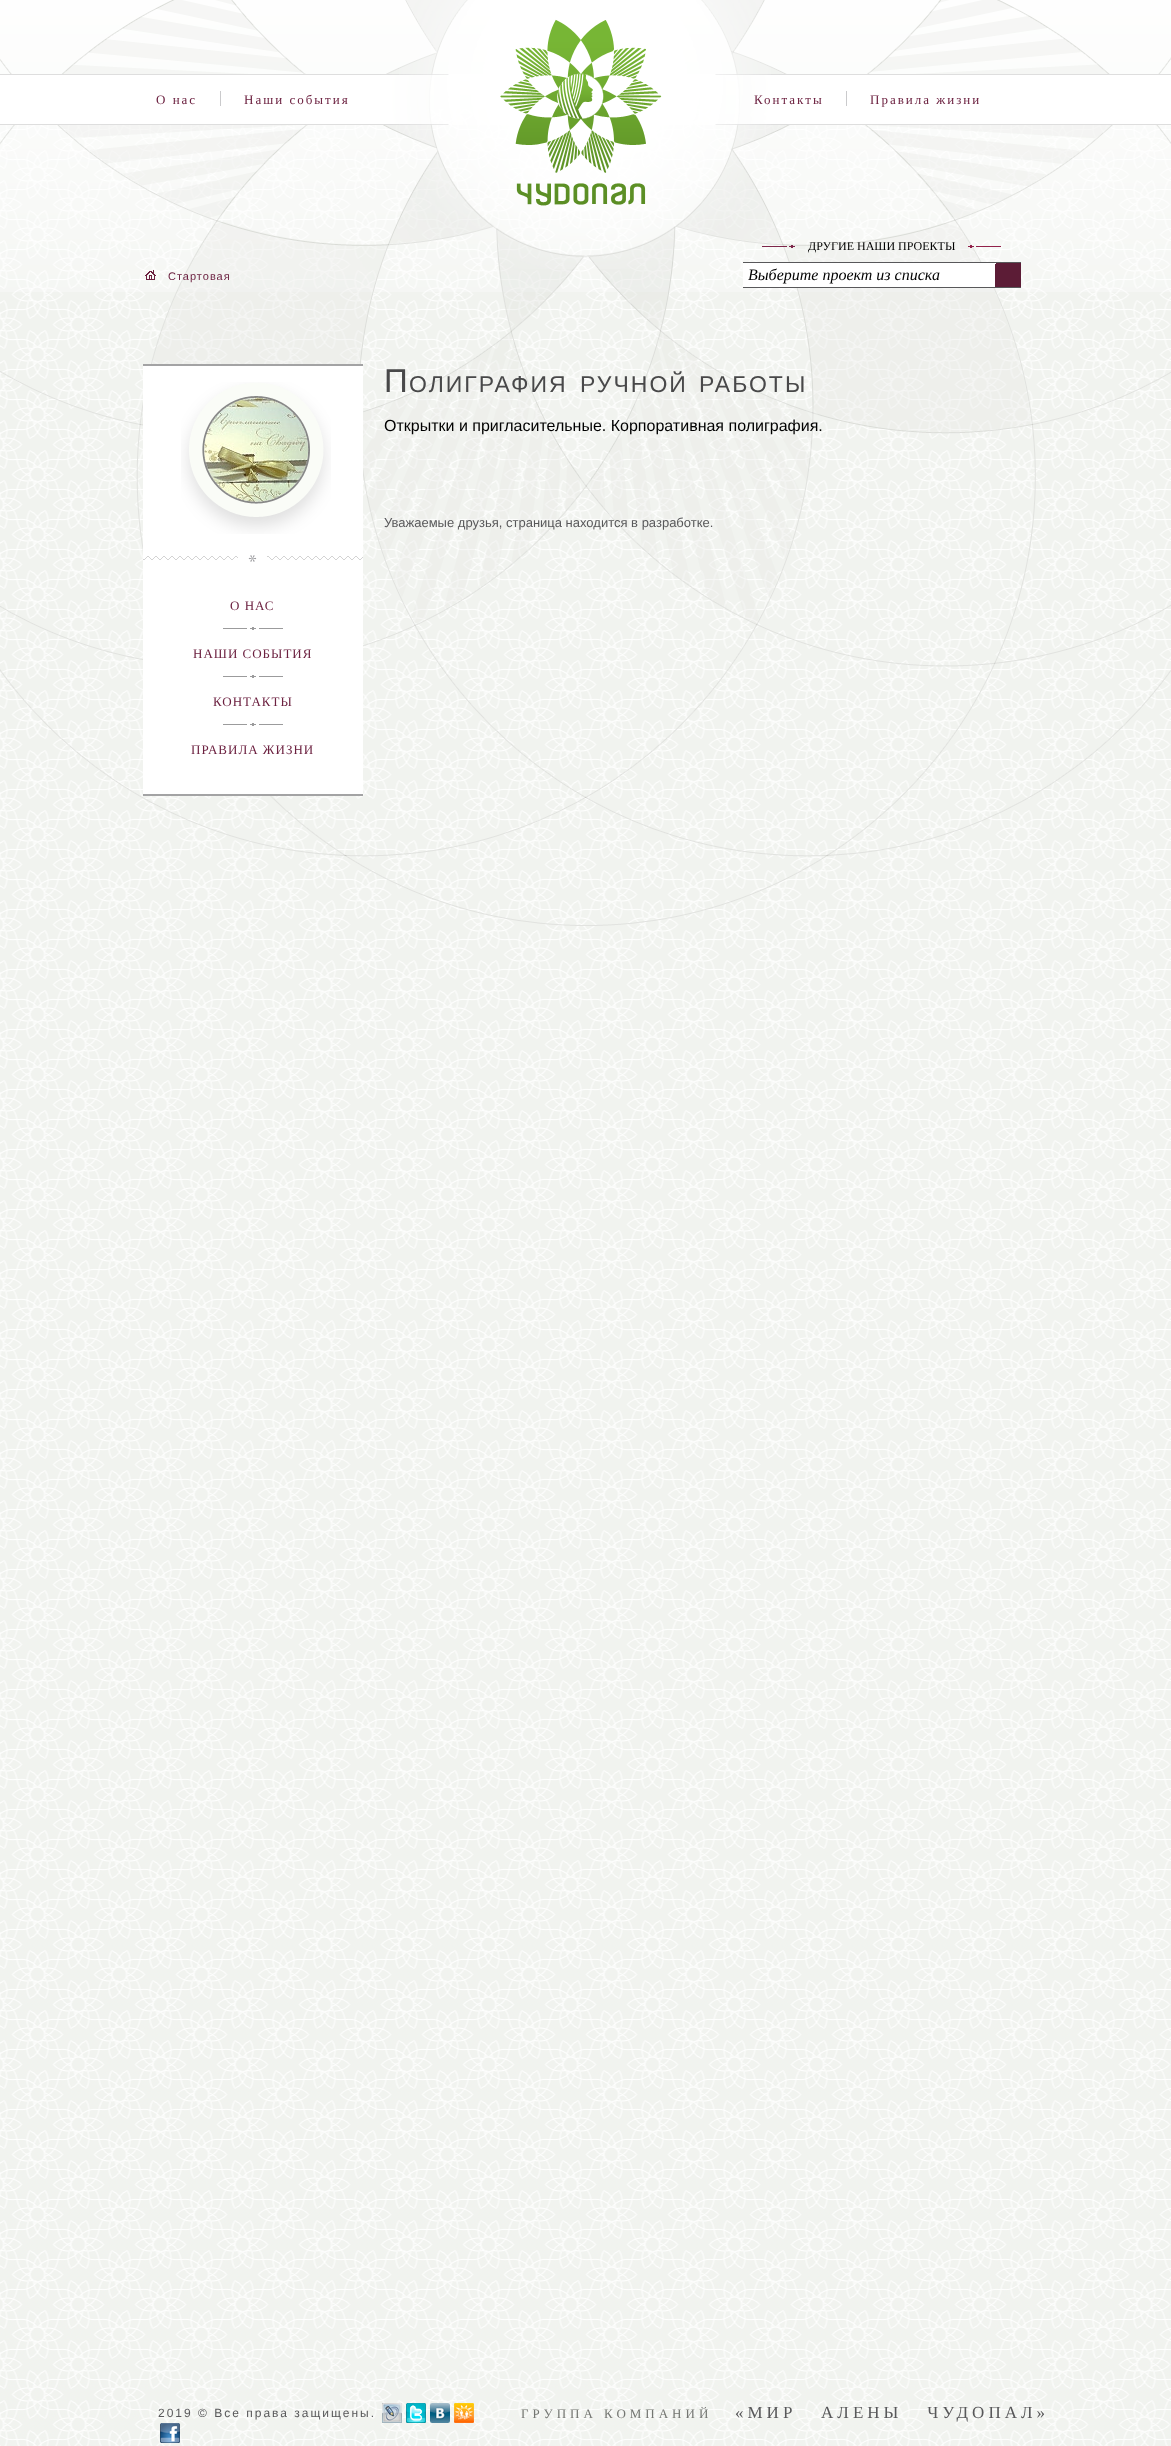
(async () => {
const canvas = document.querySelector("canvas")
canvas.width = 1171
canvas.height = 2446
const c = canvas.getContext("2d")
c.miterLimit = 4
c.fontKerning = "normal"
function T(s,x,y){c.fillText(s,x,y)}
function R(x,y,w,h){c.fillRect(x,y,w,h)}
async function I(src,x,y,w,h){const img=new Image();img.src=src;await img.decode();c.drawImage(img,x,y,w,h)}
c.fillStyle="#f1f3ef"
R(0,0,1171,2446)
await I("1.png",0,0,1171,292)
await I("2.png",0,109,1171,2337)
await I("3.png",0,0,1171,926)
await I("4.png",0,74,1171,51)
await I("5.png",399,0,372,269)
c.fillStyle="#cacacc"
R(220,91,1,15)
c.letterSpacing="2px"
c.font="13px Liberation Serif"
c.fillStyle="#6c2140"
T("О нас",156,104)
T("Наши события",244,104)
await I("6.png",500,19,162,187)
c.fillStyle="#cacacc"
R(846,91,1,15)
c.fillStyle="#6c2140"
T("Контакты",754,104)
T("Правила жизни",870,104)
await I("7.png",145,270,11,10)
c.letterSpacing="1px"
c.font="11px Liberation Sans"
T("Стартовая",168,280)
await I("8.png",762,245,33,3)
c.letterSpacing="0px"
c.font="12px Liberation Serif"
c.fillStyle="#000"
T("ДРУГИЕ НАШИ ПРОЕКТЫ",808,250)
await I("9.png",968,245,33,3)
c.fillStyle="#fff"
R(743,263,252,24)
c.fillStyle="#58585a"
R(743,262,278,1)
R(743,287,278,1)
c.font="italic 16px Liberation Serif"
c.fillStyle="#000"
T("Выберите проект из списка",748,280)
c.fillStyle="#5c1c36"
R(995,263,26,24)
c.fillStyle="#fff"
R(995,263,1,1)
c.letterSpacing="2px"
c.font="33px Liberation Sans"
c.fillStyle="#484849"
T("П",384,392)
c.font="23px Liberation Sans"
T("ОЛИГРАФИЯ",409,392)
T("РУЧНОЙ",580,392)
T("РАБОТЫ",699,392)
c.letterSpacing="0px"
c.font="16px Liberation Sans"
c.fillStyle="#000"
T("Открытки и пригласительные. Корпоративная полиграфия.",384,431)
c.font="13px Liberation Sans"
c.fillStyle="#58585a"
T("Уважаемые друзья, страница находится в разработке.",384,527)
c.fillStyle="#fff"
R(143,366,220,428)
c.fillStyle="#a3a3a4"
R(143,364,220,2)
R(143,794,220,2)
await I("10.png",143,555,220,7)
await I("12.png",204,397,105,105)
await I("11.png",181,382,150,152)
await I("13.png",223,627,60,3)
c.letterSpacing="1px"
c.font="13px Liberation Serif"
c.fillStyle="#6c2140"
T("О НАС",230,610)
await I("13.png",223,675,60,3)
T("НАШИ СОБЫТИЯ",193,658)
await I("13.png",223,723,60,3)
T("КОНТАКТЫ",213,706)
T("ПРАВИЛА ЖИЗНИ",191,754)
c.letterSpacing="2px"
c.font="12px Liberation Sans"
c.fillStyle="#58585a"
T("2019 © Все права защищены.",158,2417)
await I("14.png",382,2403,20,20)
await I("15.png",406,2403,20,20)
await I("16.png",430,2403,20,20)
await I("17.png",454,2403,20,20)
await I("18.png",160,2423,20,20)
c.letterSpacing="4px"
c.font="13px Liberation Serif"
c.fillStyle="#747672"
T("ГРУППА КОМПАНИЙ",521,2418)
c.font="17px Liberation Serif"
c.fillStyle="#58585a"
T("«МИР   АЛЕНЫ   ЧУДОПАЛ»",735,2418)
})()
